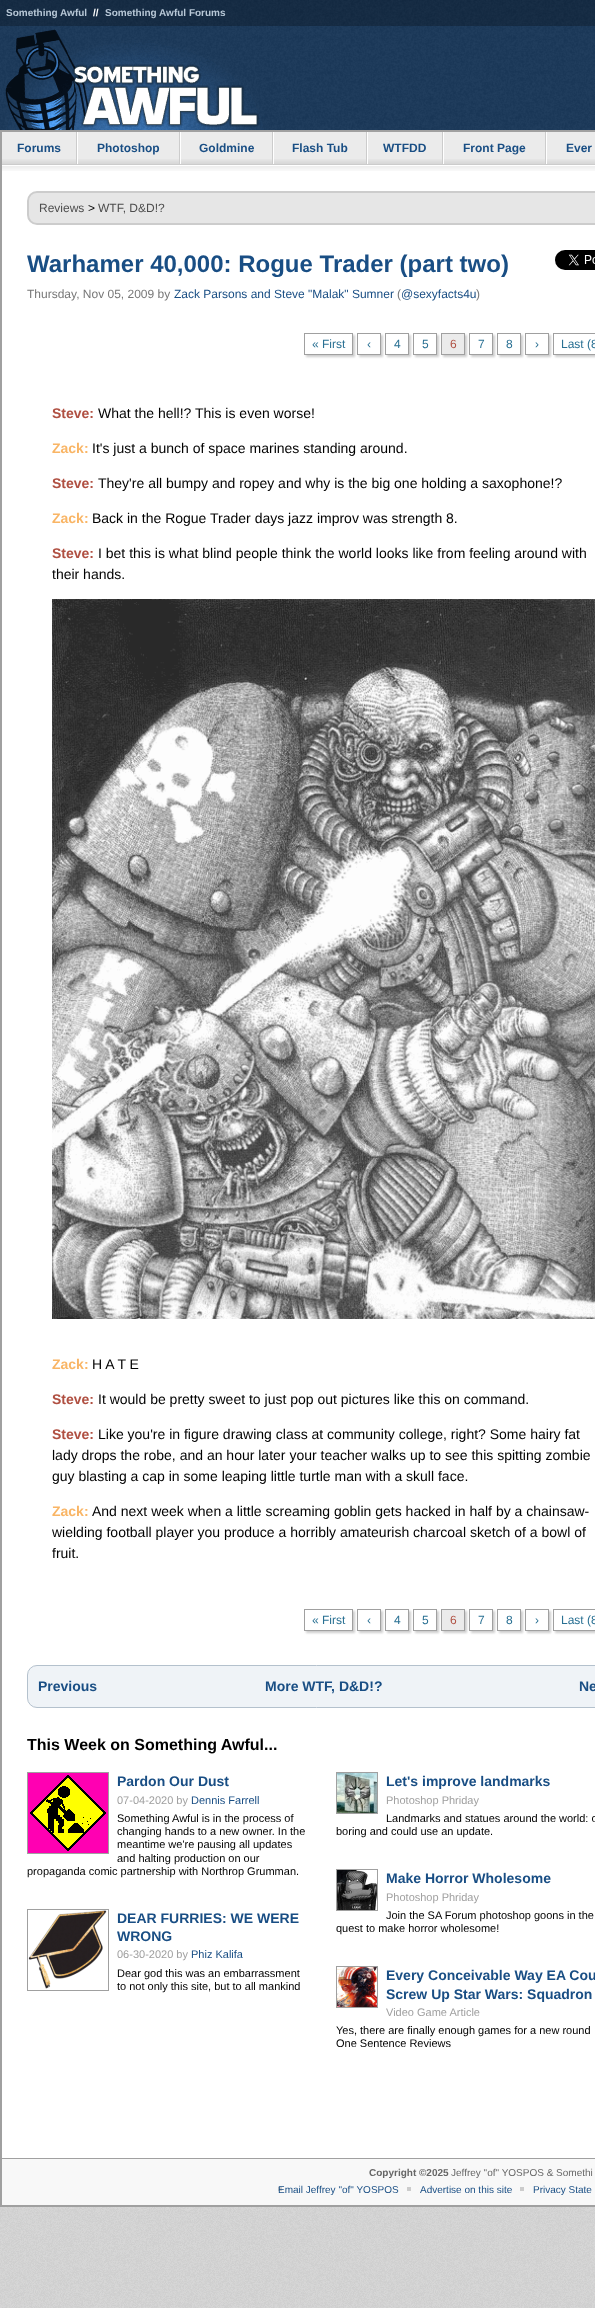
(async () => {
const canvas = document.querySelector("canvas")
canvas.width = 595
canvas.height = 2308
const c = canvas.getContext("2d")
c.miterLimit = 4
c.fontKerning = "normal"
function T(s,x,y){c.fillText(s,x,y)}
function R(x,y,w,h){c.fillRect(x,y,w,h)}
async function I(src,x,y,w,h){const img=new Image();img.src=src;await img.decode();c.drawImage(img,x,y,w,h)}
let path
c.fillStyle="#fff"
R(0,0,595,2308)
await I("1.png",0,2207,595,101)
await I("2.png",0,0,595,130)
c.font="bold 10px Liberation Sans"
c.fillStyle="#b7c7d6"
T("Something Awful",6,16)
c.fillStyle="#fff"
T("//",93,16)
c.fillStyle="#b7c7d6"
T("Something Awful Forums",105,16)
c.fillStyle="#fff"
R(74,66,183,59)
await I("3.png",0,26,270,104)
c.fillStyle="#a0a0a0"
R(0,130,595,2)
R(0,130,2,2028)
c.fillStyle="#ebebeb"
R(2,132,593,32)
c.fillStyle="#ccc"
R(2,164,593,1)
await I("4.png",2,159,74,5)
c.font="bold 12px Liberation Sans"
c.fillStyle="#194e84"
T("Forums",17,152)
c.fillStyle="#ccc"
R(76,132,1,32)
await I("5.png",78,159,101,5)
c.fillStyle="#fff"
R(77,132,1,32)
c.fillStyle="#194e84"
T("Photoshop",97,152)
c.fillStyle="#ccc"
R(179,132,1,32)
await I("6.png",181,159,91,5)
c.fillStyle="#fff"
R(180,132,1,32)
c.fillStyle="#194e84"
T("Goldmine",199,152)
c.fillStyle="#ccc"
R(272,132,1,32)
await I("7.png",274,159,92,5)
c.fillStyle="#fff"
R(273,132,1,32)
c.fillStyle="#194e84"
T("Flash Tub",292,152)
c.fillStyle="#ccc"
R(366,132,1,32)
await I("4.png",368,159,74,5)
c.fillStyle="#fff"
R(367,132,1,32)
c.fillStyle="#194e84"
T("WTFDD",383,152)
c.fillStyle="#ccc"
R(442,132,1,32)
await I("5.png",444,159,101,5)
c.fillStyle="#fff"
R(443,132,1,32)
c.fillStyle="#194e84"
T("Front Page",463,152)
c.fillStyle="#ccc"
R(545,132,1,32)
await I("8.png",547,159,48,5)
c.fillStyle="#fff"
R(546,132,1,32)
c.fillStyle="#194e84"
T("Ever",566,152)
await I("9.png",2,166,593,5)
c.fillStyle="#e6e6e6"
c.beginPath()
c.roundRect(28,192,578,32,9)
c.fill()
c.strokeStyle="#ccc"
c.lineWidth=2
c.stroke()
c.font="12px Liberation Sans"
c.fillStyle="#4d4d4d"
T("Reviews",39,212)
c.fillStyle="#000"
T(">",88,212)
c.fillStyle="#4d4d4d"
T("WTF, D&D!?",98,212)
c.font="bold 24px Liberation Sans"
c.fillStyle="#194e84"
T("Warhamer 40,000: Rogue Trader (part two)",27,272)
c.font="12px Liberation Sans"
c.fillStyle="#777"
T("Thursday, Nov 05, 2009 by",27,298)
c.fillStyle="#194e84"
T("Zack Parsons and Steve \"Malak\" Sumner",174,298)
c.fillStyle="#777"
T("(",397,298)
c.fillStyle="#194e84"
T("@sexyfacts4u",401,298)
c.fillStyle="#777"
T(")",476,298)
await I("10.png",555,250,40,20)
c.save()
path = new Path2D("M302 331h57v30h-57zm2 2h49v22h-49z")
c.clip(path,"evenodd")
c.fillStyle="#ccc"
c.filter="blur(1px)"
c.beginPath()
c.rect(306,335,49,22)
c.fill()
c.filter="none"
c.restore()
c.strokeStyle="#a0a0a0"
c.lineWidth=1
c.strokeRect(304.5,333.5,48,21)
c.fillStyle="#297093"
T("« First",312,348)
c.save()
path = new Path2D("M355 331h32v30h-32zm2 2h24v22h-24z")
c.clip(path,"evenodd")
c.fillStyle="#ccc"
c.filter="blur(1px)"
c.beginPath()
c.rect(359,335,24,22)
c.fill()
c.filter="none"
c.restore()
c.strokeRect(357.5,333.5,23,21)
T("‹",367,348)
c.save()
path = new Path2D("M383 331h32v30h-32zm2 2h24v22h-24z")
c.clip(path,"evenodd")
c.fillStyle="#ccc"
c.filter="blur(1px)"
c.beginPath()
c.rect(387,335,24,22)
c.fill()
c.filter="none"
c.restore()
c.strokeRect(385.5,333.5,23,21)
T("4",394,348)
c.save()
path = new Path2D("M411 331h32v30h-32zm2 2h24v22h-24z")
c.clip(path,"evenodd")
c.fillStyle="#ccc"
c.filter="blur(1px)"
c.beginPath()
c.rect(415,335,24,22)
c.fill()
c.filter="none"
c.restore()
c.strokeRect(413.5,333.5,23,21)
T("5",422,348)
c.fillStyle="#ccc"
c.filter="blur(1px)"
c.beginPath()
c.rect(443,335,24,22)
c.fill()
c.filter="none"
c.strokeRect(441.5,333.5,23,21)
c.fillStyle="#ebebeb"
R(442,334,22,20)
c.fillStyle="#b05042"
T("6",450,348)
c.save()
path = new Path2D("M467 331h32v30h-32zm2 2h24v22h-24z")
c.clip(path,"evenodd")
c.fillStyle="#ccc"
c.filter="blur(1px)"
c.beginPath()
c.rect(471,335,24,22)
c.fill()
c.filter="none"
c.restore()
c.strokeRect(469.5,333.5,23,21)
c.fillStyle="#297093"
T("7",478,348)
c.save()
path = new Path2D("M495 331h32v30h-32zm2 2h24v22h-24z")
c.clip(path,"evenodd")
c.fillStyle="#ccc"
c.filter="blur(1px)"
c.beginPath()
c.rect(499,335,24,22)
c.fill()
c.filter="none"
c.restore()
c.strokeRect(497.5,333.5,23,21)
T("8",506,348)
c.save()
path = new Path2D("M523 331h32v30h-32zm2 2h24v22h-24z")
c.clip(path,"evenodd")
c.fillStyle="#ccc"
c.filter="blur(1px)"
c.beginPath()
c.rect(527,335,24,22)
c.fill()
c.filter="none"
c.restore()
c.strokeRect(525.5,333.5,23,21)
T("›",535,348)
c.save()
c.beginPath()
c.rect(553,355,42,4)
c.clip()
c.fillStyle="#ccc"
c.filter="blur(1px)"
c.beginPath()
c.rect(555,335,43,22)
c.fill()
c.filter="none"
c.restore()
c.strokeRect(553.5,333.5,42,21)
T("Last (8",561,348)
c.font="bold 14px Liberation Sans"
c.fillStyle="#b05042"
T("Steve:",52,418)
c.font="14px Liberation Sans"
c.fillStyle="#000"
T("What the hell!? This is even worse!",98,418)
c.font="bold 14px Liberation Sans"
c.fillStyle="#f9b565"
T("Zack:",52,453)
c.font="14px Liberation Sans"
c.fillStyle="#000"
T("It's just a bunch of space marines standing around.",92,453)
c.font="bold 14px Liberation Sans"
c.fillStyle="#b05042"
T("Steve:",52,488)
c.font="14px Liberation Sans"
c.fillStyle="#000"
T("They're all bumpy and ropey and why is the big one holding a saxophone!?",98,488)
c.font="bold 14px Liberation Sans"
c.fillStyle="#f9b565"
T("Zack:",52,523)
c.font="14px Liberation Sans"
c.fillStyle="#000"
T("Back in the Rogue Trader days jazz improv was strength 8.",92,523)
c.font="bold 14px Liberation Sans"
c.fillStyle="#b05042"
T("Steve:",52,558)
c.font="14px Liberation Sans"
c.fillStyle="#000"
T("I bet this is what blind people think the world looks like from feeling around with",98,558)
T("their hands.",52,579)
await I("11.png",52,599,543,720)
c.font="bold 14px Liberation Sans"
c.fillStyle="#f9b565"
T("Zack:",52,1369)
c.font="14px Liberation Sans"
c.fillStyle="#000"
T("H A T E",92,1369)
c.font="bold 14px Liberation Sans"
c.fillStyle="#b05042"
T("Steve:",52,1404)
c.font="14px Liberation Sans"
c.fillStyle="#000"
T("It would be pretty sweet to just pop out pictures like this on command.",98,1404)
c.font="bold 14px Liberation Sans"
c.fillStyle="#b05042"
T("Steve:",52,1439)
c.font="14px Liberation Sans"
c.fillStyle="#000"
T("Like you're in figure drawing class at community college, right? Some hairy fat",98,1439)
T("lady drops the robe, and an hour later your teacher walks up to see this spitting zombie",52,1460)
T("guy blasting a cap in some leaping little turtle man with a skull face.",52,1481)
c.font="bold 14px Liberation Sans"
c.fillStyle="#f9b565"
T("Zack:",52,1516)
c.font="14px Liberation Sans"
c.fillStyle="#000"
T("And next week when a little screaming goblin gets hacked in half by a chainsaw-",92,1516)
T("wielding football player you produce a horribly amateurish charcoal sketch of a bowl of",52,1537)
T("fruit.",52,1558)
c.save()
path = new Path2D("M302 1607h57v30h-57zm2 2h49v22h-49z")
c.clip(path,"evenodd")
c.fillStyle="#ccc"
c.filter="blur(1px)"
c.beginPath()
c.rect(306,1611,49,22)
c.fill()
c.filter="none"
c.restore()
c.strokeRect(304.5,1609.5,48,21)
c.font="12px Liberation Sans"
c.fillStyle="#297093"
T("« First",312,1624)
c.save()
path = new Path2D("M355 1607h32v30h-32zm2 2h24v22h-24z")
c.clip(path,"evenodd")
c.fillStyle="#ccc"
c.filter="blur(1px)"
c.beginPath()
c.rect(359,1611,24,22)
c.fill()
c.filter="none"
c.restore()
c.strokeRect(357.5,1609.5,23,21)
T("‹",367,1624)
c.save()
path = new Path2D("M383 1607h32v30h-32zm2 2h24v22h-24z")
c.clip(path,"evenodd")
c.fillStyle="#ccc"
c.filter="blur(1px)"
c.beginPath()
c.rect(387,1611,24,22)
c.fill()
c.filter="none"
c.restore()
c.strokeRect(385.5,1609.5,23,21)
T("4",394,1624)
c.save()
path = new Path2D("M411 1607h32v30h-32zm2 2h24v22h-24z")
c.clip(path,"evenodd")
c.fillStyle="#ccc"
c.filter="blur(1px)"
c.beginPath()
c.rect(415,1611,24,22)
c.fill()
c.filter="none"
c.restore()
c.strokeRect(413.5,1609.5,23,21)
T("5",422,1624)
c.fillStyle="#ccc"
c.filter="blur(1px)"
c.beginPath()
c.rect(443,1611,24,22)
c.fill()
c.filter="none"
c.strokeRect(441.5,1609.5,23,21)
c.fillStyle="#ebebeb"
R(442,1610,22,20)
c.fillStyle="#b05042"
T("6",450,1624)
c.save()
path = new Path2D("M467 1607h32v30h-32zm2 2h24v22h-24z")
c.clip(path,"evenodd")
c.fillStyle="#ccc"
c.filter="blur(1px)"
c.beginPath()
c.rect(471,1611,24,22)
c.fill()
c.filter="none"
c.restore()
c.strokeRect(469.5,1609.5,23,21)
c.fillStyle="#297093"
T("7",478,1624)
c.save()
path = new Path2D("M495 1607h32v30h-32zm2 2h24v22h-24z")
c.clip(path,"evenodd")
c.fillStyle="#ccc"
c.filter="blur(1px)"
c.beginPath()
c.rect(499,1611,24,22)
c.fill()
c.filter="none"
c.restore()
c.strokeRect(497.5,1609.5,23,21)
T("8",506,1624)
c.save()
path = new Path2D("M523 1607h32v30h-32zm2 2h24v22h-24z")
c.clip(path,"evenodd")
c.fillStyle="#ccc"
c.filter="blur(1px)"
c.beginPath()
c.rect(527,1611,24,22)
c.fill()
c.filter="none"
c.restore()
c.strokeRect(525.5,1609.5,23,21)
T("›",535,1624)
c.save()
c.beginPath()
c.rect(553,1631,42,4)
c.clip()
c.fillStyle="#ccc"
c.filter="blur(1px)"
c.beginPath()
c.rect(555,1611,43,22)
c.fill()
c.filter="none"
c.restore()
c.strokeRect(553.5,1609.5,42,21)
T("Last (8",561,1624)
c.fillStyle="#eff3f7"
c.beginPath()
c.roundRect(27.5,1665.5,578,42,9.5)
c.fill()
c.strokeStyle="#b4c1cd"
c.stroke()
c.font="bold 14px Liberation Sans"
c.fillStyle="#194e84"
T("Previous",38,1691)
T("More WTF, D&D!?",265,1691)
T("Ne",579,1691)
c.font="bold 16px Liberation Sans"
c.fillStyle="#000"
T("This Week on Something Awful...",27,1750)
c.strokeStyle="#a0a0a0"
c.strokeRect(27.5,1772.5,81,81)
await I("12.png",28,1773,80,80)
c.font="bold 14px Liberation Sans"
c.fillStyle="#194e84"
T("Pardon Our Dust",117,1786)
c.font="11px Liberation Sans"
c.fillStyle="#a0a0a0"
T("07-04-2020 by",117,1804)
c.fillStyle="#194e84"
T("Dennis Farrell",191,1804)
c.fillStyle="#000"
T("Something Awful is in the process of",117,1822)
T("changing hands to a new owner. In the",117,1835)
T("meantime we're pausing all updates",117,1848)
T("and halting production on our",117,1862)
T("propaganda comic partnership with Northrop Grumman.",27,1875)
c.strokeRect(27.5,1909.5,81,81)
await I("13.png",28,1910,79,79)
c.font="bold 14px Liberation Sans"
c.fillStyle="#194e84"
T("DEAR FURRIES: WE WERE",117,1923)
T("WRONG",117,1941)
c.font="11px Liberation Sans"
c.fillStyle="#a0a0a0"
T("06-30-2020 by",117,1958)
c.fillStyle="#194e84"
T("Phiz Kalifa",191,1958)
c.fillStyle="#000"
T("Dear god this was an embarrassment",117,1977)
T("to not only this site, but to all mankind",117,1990)
c.strokeRect(336.5,1772.5,41,41)
await I("14.png",337,1773,40,40)
c.font="bold 14px Liberation Sans"
c.fillStyle="#194e84"
T("Let's improve landmarks",386,1786)
c.font="11px Liberation Sans"
c.fillStyle="#a0a0a0"
T("Photoshop Phriday",386,1804)
c.fillStyle="#000"
T("Landmarks and statues around the world: o",386,1822)
T("boring and could use an update.",336,1835)
c.strokeRect(336.5,1869.5,41,41)
await I("15.png",337,1870,40,40)
c.font="bold 14px Liberation Sans"
c.fillStyle="#194e84"
T("Make Horror Wholesome",386,1883)
c.font="11px Liberation Sans"
c.fillStyle="#a0a0a0"
T("Photoshop Phriday",386,1901)
c.fillStyle="#000"
T("Join the SA Forum photoshop goons in the",386,1919)
T("quest to make horror wholesome!",336,1932)
c.strokeRect(336.5,1966.5,41,41)
await I("16.png",337,1967,40,40)
c.font="bold 14px Liberation Sans"
c.fillStyle="#194e84"
T("Every Conceivable Way EA Cou",386,1980)
T("Screw Up Star Wars: Squadron",386,1999)
c.font="11px Liberation Sans"
c.fillStyle="#a0a0a0"
T("Video Game Article",386,2016)
c.fillStyle="#000"
T("Yes, there are finally enough games for a new round",336,2034)
T("One Sentence Reviews",336,2047)
c.fillStyle="#a0a0a0"
R(0,2158,595,1)
R(0,2205,595,2)
R(0,2158,2,49)
c.fillStyle="#f8f8f8"
R(2,2159,593,46)
c.font="bold 10px Liberation Sans"
c.fillStyle="#666"
T("Copyright ©2025",369,2176)
c.font="10px Liberation Sans"
T("Jeffrey \"of\" YOSPOS & Somethi",451,2176)
c.fillStyle="#ccc"
R(278,2187,4,4)
c.fillStyle="#194e84"
T("Email Jeffrey \"of\" YOSPOS",278,2193)
T("Advertise on this site",420,2193)
c.fillStyle="#ccc"
R(407,2187,4,4)
c.fillStyle="#194e84"
T("Privacy State",533,2193)
c.fillStyle="#ccc"
R(520,2187,4,4)
})()
